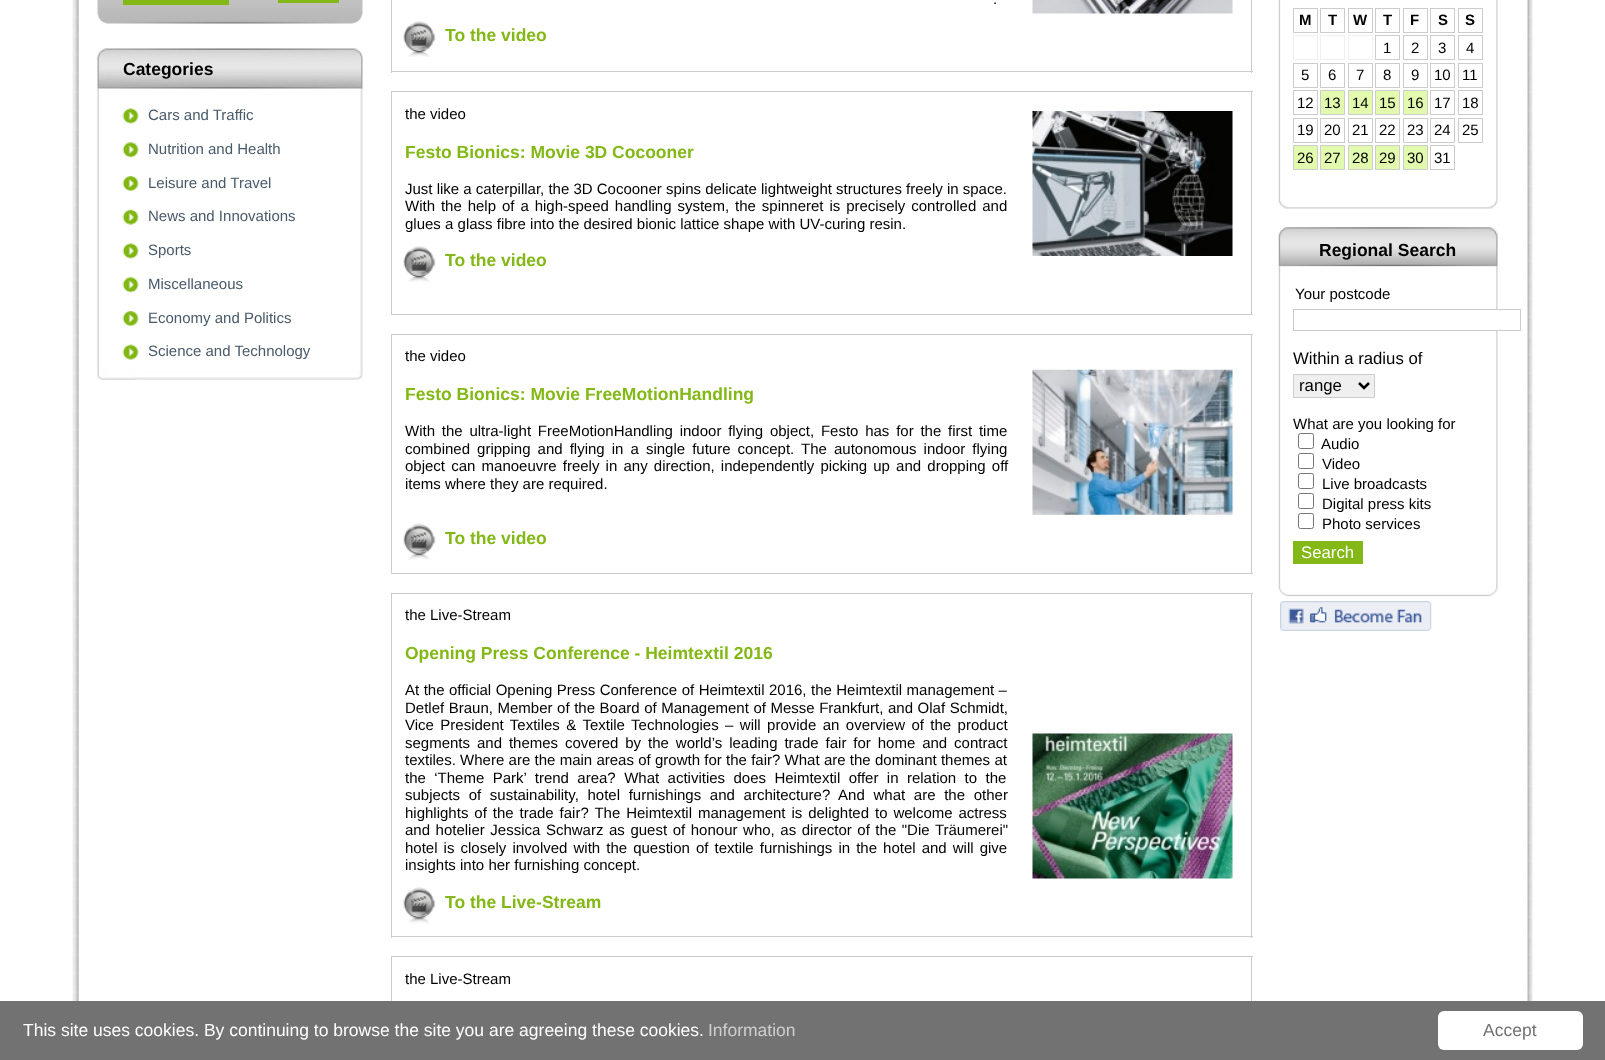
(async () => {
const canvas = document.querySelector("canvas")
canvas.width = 1605
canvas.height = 1060
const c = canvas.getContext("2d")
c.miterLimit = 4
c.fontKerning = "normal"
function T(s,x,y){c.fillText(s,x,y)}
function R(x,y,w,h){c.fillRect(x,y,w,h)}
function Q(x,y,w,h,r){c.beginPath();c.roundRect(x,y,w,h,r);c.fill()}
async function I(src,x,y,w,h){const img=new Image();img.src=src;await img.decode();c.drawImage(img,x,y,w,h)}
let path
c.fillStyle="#fff"
R(0,0,1605,1060)
await I("1.png",72,0,1461,1001)
await I("2.png",97,0,266,24)
c.fillStyle="#83b817"
R(123,0,106,5)
R(278,0,61,3)
await I("3.png",97,48,266,332)
c.font="bold 17.5px Liberation Sans"
c.fillStyle="#000"
T("Categories",123,75)
await I("4.png",122,108,17,16)
c.font="15px Liberation Sans"
c.fillStyle="#495a69"
T("Cars and Traffic",148,120)
await I("5.png",122,142,17,16)
T("Nutrition and Health",148,154)
await I("6.png",122,176,17,15)
T("Leisure and Travel",148,188)
await I("7.png",122,209,17,16)
T("News and Innovations",148,221)
await I("4.png",122,243,17,16)
T("Sports",148,255)
await I("5.png",122,277,17,16)
T("Miscellaneous",148,289)
await I("6.png",122,311,17,15)
T("Economy and Politics",148,323)
await I("7.png",122,344,17,16)
T("Science and Technology",148,356)
c.fillStyle="#ccc"
R(1251,0,1,73)
R(391,71,862,1)
R(391,0,1,73)
c.fillStyle="#000"
T(".",993,4)
await I("8.png",403,21,33,36)
c.font="bold 17.5px Liberation Sans"
c.fillStyle="#83b817"
T("To the video",445,41)
await I("9.png",1032,0,201,14)
c.fillStyle="#ccc"
R(391,91,862,1)
R(1251,91,1,224)
R(391,314,862,1)
R(391,91,1,224)
c.font="15px Liberation Sans"
c.fillStyle="#000"
T("the video",405,119)
c.font="bold 17.5px Liberation Sans"
c.fillStyle="#83b817"
T("Festo Bionics: Movie 3D Cocooner",405,158)
c.font="15px Liberation Sans"
c.fillStyle="#000"
T("Just like a caterpillar, the 3D Cocooner spins delicate lightweight structures freely in space.",405,194)
c.wordSpacing="1.75px"
T("With the help of a high-speed handling system, the spinneret is precisely controlled and",405,211)
c.wordSpacing="0px"
T("glues a glass fibre into the desired bionic lattice shape with UV-curing resin.",405,229)
await I("8.png",403,246,33,36)
c.font="bold 17.5px Liberation Sans"
c.fillStyle="#83b817"
T("To the video",445,266)
await I("10.png",1032,111,201,145)
c.fillStyle="#ccc"
R(391,334,862,1)
R(1251,334,1,240)
R(391,573,862,1)
R(391,334,1,240)
c.font="15px Liberation Sans"
c.fillStyle="#000"
T("the video",405,361)
c.font="bold 17.5px Liberation Sans"
c.fillStyle="#83b817"
T("Festo Bionics: Movie FreeMotionHandling",405,400)
c.wordSpacing="2.6px"
c.font="15px Liberation Sans"
c.fillStyle="#000"
T("With the ultra-light FreeMotionHandling indoor flying object, Festo has for the first time",405,436)
c.wordSpacing="2.9px"
T("combined gripping and flying in a single future concept. The autonomous indoor flying",405,454)
c.wordSpacing="2px"
T("object can manoeuvre freely in any direction, independently picking up and dropping off",405,471)
c.wordSpacing="0px"
T("items where they are required.",405,489)
await I("11.png",403,523,33,37)
c.font="bold 17.5px Liberation Sans"
c.fillStyle="#83b817"
T("To the video",445,544)
await I("12.png",1032,369,201,146)
c.fillStyle="#ccc"
R(391,593,862,1)
R(1251,593,1,345)
R(391,936,862,1)
R(391,593,1,345)
c.font="15px Liberation Sans"
c.fillStyle="#000"
T("the Live-Stream",405,620)
c.font="bold 17.5px Liberation Sans"
c.fillStyle="#83b817"
T("Opening Press Conference - Heimtextil 2016",405,659)
c.wordSpacing="0.3px"
c.font="15px Liberation Sans"
c.fillStyle="#000"
T("At the official Opening Press Conference of Heimtextil 2016, the Heimtextil management –",405,695)
c.wordSpacing="0.4px"
T("Detlef Braun, Member of the Board of Management of Messe Frankfurt, and Olaf Schmidt,",405,713)
c.wordSpacing="2.25px"
T("Vice President Textiles & Textile Technologies – will provide an overview of the product",405,730)
c.wordSpacing="2.75px"
T("segments and themes covered by the world’s leading trade fair for home and contract",405,748)
c.wordSpacing="0.1px"
T("textiles. Where are the main areas of growth for the fair? What are the dominant themes at",405,765)
c.wordSpacing="4.25px"
T("the ‘Theme Park’ trend area? What activities does Heimtextil offer in relation to the",405,783)
c.wordSpacing="4.5px"
T("subjects of sustainability, hotel furnishings and architecture? And what are the other",405,800)
c.wordSpacing="1.75px"
T("highlights of the trade fair? The Heimtextil management is delighted to welcome actress",405,818)
c.wordSpacing="1.4px"
T("and hotelier Jessica Schwarz as guest of honour who, as director of the \"Die Träumerei\"",405,835)
c.wordSpacing="1.9px"
T("hotel is closely involved with the question of textile furnishings in the hotel and will give",405,853)
c.wordSpacing="0px"
T("insights into her furnishing concept.",405,870)
await I("13.png",403,887,33,37)
c.font="bold 17.5px Liberation Sans"
c.fillStyle="#83b817"
T("To the Live-Stream",445,908)
await I("14.png",1032,733,201,146)
c.fillStyle="#ccc"
R(391,956,862,1)
R(1251,956,1,45)
R(391,956,1,45)
c.font="15px Liberation Sans"
c.fillStyle="#000"
T("the Live-Stream",405,984)
await I("15.png",1278,0,220,209)
c.strokeStyle="#ccc"
c.strokeRect(1293.5,8.5,24,24)
c.font="bold 15px Liberation Sans"
T("M",1299,25)
c.strokeRect(1320.5,8.5,24,24)
T("T",1328,25)
c.strokeRect(1348.5,8.5,24,24)
T("W",1353,25)
c.strokeRect(1375.5,8.5,24,24)
T("T",1383,25)
c.strokeRect(1403.5,8.5,24,24)
T("F",1410,25)
c.strokeRect(1430.5,8.5,24,24)
T("S",1438,25)
c.strokeRect(1458.5,8.5,24,24)
T("S",1465,25)
c.strokeStyle="#f0f0f0"
c.strokeRect(1293.5,35.5,24,24)
c.strokeRect(1320.5,35.5,24,24)
c.strokeRect(1348.5,35.5,24,24)
c.strokeStyle="#ccc"
c.strokeRect(1375.5,35.5,24,24)
c.font="15px Liberation Sans"
T("1",1383,53)
c.strokeRect(1403.5,35.5,24,24)
T("2",1411,53)
c.strokeRect(1430.5,35.5,24,24)
T("3",1438,53)
c.strokeRect(1458.5,35.5,24,24)
T("4",1466,53)
c.strokeRect(1293.5,63.5,24,24)
T("5",1301,80)
c.strokeRect(1320.5,63.5,24,24)
T("6",1328,80)
c.strokeRect(1348.5,63.5,24,24)
T("7",1356,80)
c.strokeRect(1375.5,63.5,24,24)
T("8",1383,80)
c.strokeRect(1403.5,63.5,24,24)
T("9",1411,80)
c.strokeRect(1430.5,63.5,24,24)
T("10",1434,80)
c.strokeRect(1458.5,63.5,24,24)
T("11",1462,80)
c.strokeRect(1293.5,90.5,24,24)
T("12",1297,108)
c.fillStyle="#e1faae"
c.beginPath()
c.rect(1320.5,90.5,24,24)
c.fill()
c.stroke()
c.fillStyle="#000"
T("13",1324,108)
c.fillStyle="#e1faae"
c.beginPath()
c.rect(1348.5,90.5,24,24)
c.fill()
c.stroke()
c.fillStyle="#000"
T("14",1352,108)
c.fillStyle="#e1faae"
c.beginPath()
c.rect(1375.5,90.5,24,24)
c.fill()
c.stroke()
c.fillStyle="#000"
T("15",1379,108)
c.fillStyle="#e1faae"
c.beginPath()
c.rect(1403.5,90.5,24,24)
c.fill()
c.stroke()
c.fillStyle="#000"
T("16",1407,108)
c.strokeRect(1430.5,90.5,24,24)
T("17",1434,108)
c.strokeRect(1458.5,90.5,24,24)
T("18",1462,108)
c.strokeRect(1293.5,118.5,24,24)
T("19",1297,135)
c.strokeRect(1320.5,118.5,24,24)
T("20",1324,135)
c.strokeRect(1348.5,118.5,24,24)
T("21",1352,135)
c.strokeRect(1375.5,118.5,24,24)
T("22",1379,135)
c.strokeRect(1403.5,118.5,24,24)
T("23",1407,135)
c.strokeRect(1430.5,118.5,24,24)
T("24",1434,135)
c.strokeRect(1458.5,118.5,24,24)
T("25",1462,135)
c.fillStyle="#e1faae"
c.beginPath()
c.rect(1293.5,145.5,24,24)
c.fill()
c.stroke()
c.fillStyle="#000"
T("26",1297,163)
c.fillStyle="#e1faae"
c.beginPath()
c.rect(1320.5,145.5,24,24)
c.fill()
c.stroke()
c.fillStyle="#000"
T("27",1324,163)
c.fillStyle="#e1faae"
c.beginPath()
c.rect(1348.5,145.5,24,24)
c.fill()
c.stroke()
c.fillStyle="#000"
T("28",1352,163)
c.fillStyle="#e1faae"
c.beginPath()
c.rect(1375.5,145.5,24,24)
c.fill()
c.stroke()
c.fillStyle="#000"
T("29",1379,163)
c.fillStyle="#e1faae"
c.beginPath()
c.rect(1403.5,145.5,24,24)
c.fill()
c.stroke()
c.fillStyle="#000"
T("30",1407,163)
c.strokeRect(1430.5,145.5,24,24)
T("31",1434,163)
await I("16.png",1278,227,220,370)
c.font="bold 17.5px Liberation Sans"
T("Regional Search",1319,256)
c.font="15px Liberation Sans"
T("Your postcode",1295,299)
c.fillStyle="#fff"
R(1496,310,2,20)
c.strokeRect(1293.5,309.5,227,21)
c.font="16.75px Liberation Sans"
c.fillStyle="#000"
T("Within a radius of",1293,364)
c.fillStyle="#efefef"
c.beginPath()
c.rect(1293.5,374.5,81,23)
c.fill()
c.stroke()
path = new Path2D("M1359 383l5 5l5-5")
c.strokeStyle="#000"
c.lineWidth=2.5
c.stroke(path)
c.fillStyle="#000"
T("range",1299,391)
c.font="15px Liberation Sans"
T("What are you looking for",1293,429)
c.beginPath()
c.roundRect(1298.5,433.5,15,15,2)
c.strokeStyle="#767676"
c.lineWidth=1
c.stroke()
T("Audio",1321,449)
c.beginPath()
c.roundRect(1298.5,453.5,15,15,2)
c.stroke()
T("Video",1322,469)
c.beginPath()
c.roundRect(1298.5,473.5,15,15,2)
c.stroke()
T("Live broadcasts",1322,489)
c.beginPath()
c.roundRect(1298.5,493.5,15,15,2)
c.stroke()
T("Digital press kits",1322,509)
c.beginPath()
c.roundRect(1298.5,513.5,15,15,2)
c.stroke()
T("Photo services",1322,529)
c.fillStyle="#83b817"
R(1293,541,70,23)
c.font="16.75px Liberation Sans"
c.fillStyle="#fff"
T("Search",1301,558)
await I("17.png",1280,601,152,30)
c.fillStyle="#727272"
R(0,1001,1605,59)
c.font="17.5px Liberation Sans"
c.fillStyle="#fff"
T("This site uses cookies. By continuing to browse the site you are agreeing these cookies.",23,1036)
c.fillStyle="#cfcfcf"
T("Information",708,1036)
c.fillStyle="#fff"
Q(1438,1011,145,39,6)
c.fillStyle="#727272"
T("Accept",1483,1036)
})()
